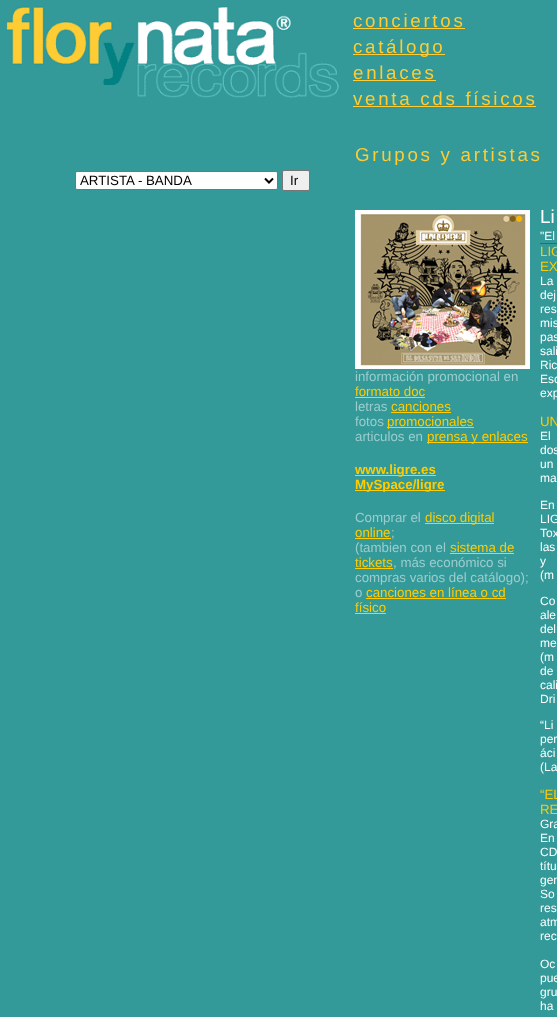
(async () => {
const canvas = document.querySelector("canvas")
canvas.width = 557
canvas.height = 1017
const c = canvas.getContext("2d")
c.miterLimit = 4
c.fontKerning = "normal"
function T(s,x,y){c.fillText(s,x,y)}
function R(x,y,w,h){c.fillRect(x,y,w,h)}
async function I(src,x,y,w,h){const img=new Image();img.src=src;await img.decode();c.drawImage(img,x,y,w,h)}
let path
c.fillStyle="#399"
R(0,0,557,1017)
await I("1.png",6,6,333,92)
c.letterSpacing="2.7px"
c.font="18.75px Liberation Sans"
c.fillStyle="#fc3"
T("conciertos",353,27)
R(353,28,112,1)
R(353,54,92,1)
T("catálogo",353,53)
T("enlaces",353,79)
R(353,80,83,1)
T("venta cds físicos",353,105)
R(353,106,183,1)
c.fillStyle="#fff"
c.beginPath()
c.roundRect(75.5,171.5,202,18,1.5)
c.fill()
c.strokeStyle="#767676"
c.stroke()
path = new Path2D("M265 178.5l4 4l4-4")
c.strokeStyle="#000"
c.lineWidth=2
c.stroke(path)
c.letterSpacing="0px"
c.font="13.3px Liberation Sans"
c.fillStyle="#000"
T("ARTISTA - BANDA",80,185)
c.fillStyle="#efefef"
c.beginPath()
c.roundRect(282.5,170.5,27,20,1.5)
c.fill()
c.strokeStyle="#767676"
c.lineWidth=1
c.stroke()
c.fillStyle="#000"
T("Ir",290,185)
c.letterSpacing="2.7px"
c.font="18.75px Liberation Sans"
c.fillStyle="#fc3"
T("Grupos y artistas",355,161)
await I("2.png",355,210,175,159)
c.letterSpacing="0px"
c.font="13.3px Liberation Sans"
c.fillStyle="#9ccdcd"
T("información promocional en",355,381)
c.fillStyle="#fc0"
T("formato doc",355,396)
R(355,397,70,1)
c.fillStyle="#9ccdcd"
T("letras",355,411)
c.fillStyle="#fc0"
T("canciones",391,411)
R(391,412,60,1)
c.fillStyle="#9ccdcd"
T("fotos",355,426)
c.fillStyle="#fc0"
R(387,427,87,1)
T("promocionales",387,426)
c.fillStyle="#9ccdcd"
T("articulos en",355,441)
c.fillStyle="#fc0"
R(427,442,101,1)
T("prensa y enlaces",427,441)
R(355,475,81,1)
c.font="bold 13.3px Liberation Sans"
T("www.ligre.es",355,474)
R(355,490,90,1)
T("MySpace/ligre",355,489)
c.font="13.3px Liberation Sans"
c.fillStyle="#9ccdcd"
T("Comprar el",355,522)
c.fillStyle="#fc0"
R(425,523,69,1)
T("disco digital",425,522)
T("online",355,537)
c.fillStyle="#9ccdcd"
T(";",391,537)
c.fillStyle="#fc0"
R(355,538,36,1)
c.fillStyle="#9ccdcd"
T("(tambien con el",355,552)
c.fillStyle="#fc0"
T("sistema de",450,552)
R(450,553,64,1)
T("tickets",355,567)
R(355,568,38,1)
c.fillStyle="#9ccdcd"
T(", más económico si",393,567)
T("compras varios del catálogo);",355,582)
T("o",355,597)
c.fillStyle="#fc0"
T("canciones en línea o cd",366,597)
R(366,598,140,1)
T("físico",355,612)
R(355,613,31,1)
c.font="18.75px Liberation Sans"
c.fillStyle="#fff"
T("Li",540,223)
c.font="12px Liberation Sans"
T("\"El",540,240)
c.fillStyle="#008181"
R(540,243,17,1)
c.font="13.3px Liberation Sans"
c.fillStyle="#fc0"
T("LIG",540,256)
T("EX",540,271)
c.font="12px Liberation Sans"
c.fillStyle="#fff"
T("La",540,285)
T("dej",540,299)
T("res",540,313)
T("mis",540,327)
T("pas",540,341)
T("sali",540,355)
T("Ric",540,369)
T("Esc",540,383)
T("exp",540,397)
c.font="13.3px Liberation Sans"
c.fillStyle="#fc0"
T("UN",540,426)
c.wordSpacing="2px"
c.font="12px Liberation Sans"
c.fillStyle="#fff"
T("El",540,440)
c.wordSpacing="0px"
T("dos",540,454)
T("un",540,468)
T("ma",540,482)
c.wordSpacing="2px"
T("En",540,509)
T("LIG",540,523)
c.wordSpacing="1px"
T("Tox",540,537)
c.wordSpacing="0px"
T("las",540,551)
c.wordSpacing="9px"
T("y",540,565)
c.wordSpacing="0px"
T("(m",540,579)
c.wordSpacing="5px"
T("Co",540,605)
c.wordSpacing="11px"
T("ale",540,619)
c.wordSpacing="4px"
T("del",540,633)
c.wordSpacing="1px"
T("me",540,647)
T("(m",540,661)
c.wordSpacing="2px"
T("de",540,675)
c.wordSpacing="4px"
T("cali",540,689)
c.wordSpacing="0px"
T("Dri",540,703)
c.wordSpacing="2px"
T("“Li",540,729)
c.wordSpacing="1px"
T("per",540,743)
T("áci",540,757)
c.wordSpacing="0px"
T("(La",540,771)
c.wordSpacing="1px"
c.font="13.3px Liberation Sans"
c.fillStyle="#fc0"
T("“EL",540,799)
c.wordSpacing="0px"
T("RE",540,814)
c.wordSpacing="1px"
c.font="12px Liberation Sans"
c.fillStyle="#fff"
T("Gra",540,828)
c.wordSpacing="0px"
T("En",540,842)
c.wordSpacing="1px"
T("CD",540,856)
c.wordSpacing="0px"
T("títu",540,870)
T("gen",540,884)
c.wordSpacing="1px"
T("So",540,898)
c.wordSpacing="0px"
T("res",540,912)
c.wordSpacing="4px"
T("atm",540,926)
c.wordSpacing="0px"
T("rec",540,940)
c.wordSpacing="1px"
T("Oc",540,968)
c.wordSpacing="2px"
T("pue",540,982)
c.wordSpacing="1px"
T("gru",540,996)
T("ha",540,1010)
})()
